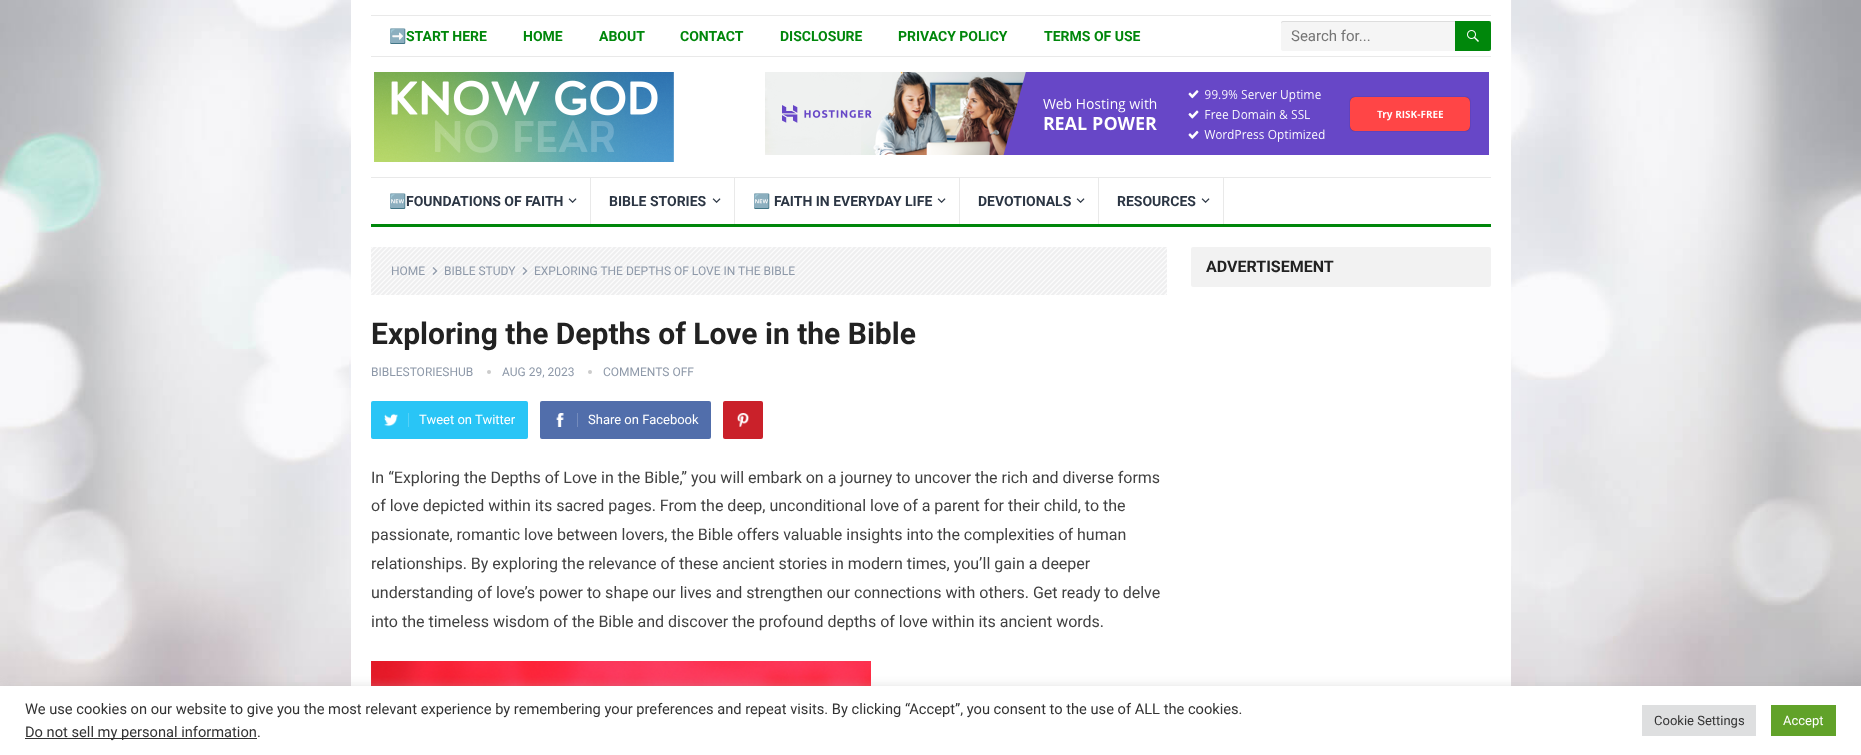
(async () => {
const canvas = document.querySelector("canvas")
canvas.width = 1861
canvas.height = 755
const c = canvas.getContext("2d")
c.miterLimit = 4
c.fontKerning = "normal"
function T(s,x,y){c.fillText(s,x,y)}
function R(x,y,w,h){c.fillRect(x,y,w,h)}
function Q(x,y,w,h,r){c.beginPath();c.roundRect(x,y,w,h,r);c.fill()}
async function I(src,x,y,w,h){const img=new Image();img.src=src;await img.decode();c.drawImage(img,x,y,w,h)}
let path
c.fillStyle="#fff"
R(0,0,1861,755)
await I("1.png",0,0,1861,686)
R(351,0,1160,686)
c.fillStyle="#e9e9e9"
R(371,15,1120,1)
R(371,56,1120,1)
c.font="bold 14px Noto Color Emoji"
c.fillStyle="#00870b"
T("➡️",389,41)
c.font="bold 14px Roboto"
T("START HERE",406,41)
T("HOME",523,41)
T("ABOUT",599,41)
T("CONTACT",680,41)
T("DISCLOSURE",780,41)
T("PRIVACY POLICY",898,41)
T("TERMS OF USE",1044,41)
c.fillStyle="#f5f5f5"
c.beginPath()
c.roundRect(1281,21,210,30,[2,0,0,2])
c.fill()
c.fillStyle="#ddd"
path = new Path2D("M1283 22h208v-1h-208c-2 0-2 2-2 3c0-1 1-2 2-2z")
c.fill(path)
c.font="15px Roboto"
c.fillStyle="#757575"
T("Search for...",1291,41)
c.fillStyle="#00870b"
c.beginPath()
c.roundRect(1455,21,36,30,[0,2,2,0])
c.fill()
await I("2.png",1467,30,12,12)
await I("3.png",374,72,300,90)
await I("4.png",765,72,724,83)
c.fillStyle="#e9e9e9"
R(371,177,1120,1)
c.fillStyle="#00870b"
R(371,224,1120,3)
c.fillStyle="#e9e9e9"
R(590,178,1,46)
c.font="bold 14px Noto Color Emoji"
c.fillStyle="#2c3644"
T("🆕",389,206)
c.font="bold 14px Roboto"
T("FOUNDATIONS OF FAITH",406,206)
await I("5.png",568,198,9,5)
c.fillStyle="#e9e9e9"
R(734,178,1,46)
c.fillStyle="#2c3644"
T("BIBLE STORIES",609,206)
await I("5.png",712,198,9,5)
c.fillStyle="#e9e9e9"
R(959,178,1,46)
c.font="bold 14px Noto Color Emoji"
c.fillStyle="#2c3644"
T("🆕",753,206)
c.font="bold 14px Roboto"
T("FAITH IN EVERYDAY LIFE",774,206)
await I("5.png",937,198,9,5)
c.fillStyle="#e9e9e9"
R(1098,178,1,46)
c.fillStyle="#2c3644"
T("DEVOTIONALS",978,206)
await I("5.png",1076,198,9,5)
c.fillStyle="#e9e9e9"
R(1223,178,1,46)
c.fillStyle="#2c3644"
T("RESOURCES",1117,206)
await I("5.png",1201,198,9,5)
await I("6.png",371,247,796,48)
c.font="12px Roboto"
c.fillStyle="#8e99a9"
T("HOME",391,275)
await I("7.png",432,267,6,8)
T("BIBLE STUDY",444,275)
await I("7.png",522,267,6,8)
T("EXPLORING THE DEPTHS OF LOVE IN THE BIBLE",534,275)
c.font="bold 30px Roboto"
c.fillStyle="#222"
T("Exploring the Depths of Love in the Bible",371,344)
c.font="12px Roboto"
c.fillStyle="#8e99a9"
T("BIBLESTORIESHUB",371,376)
c.fillStyle="#ccc"
c.beginPath()
c.arc(489,372,2,0,7)
c.fill()
c.fillStyle="#8e99a9"
T("AUG 29, 2023",502,376)
c.fillStyle="#ccc"
c.beginPath()
c.arc(590,372,2,0,7)
c.fill()
c.fillStyle="#8e99a9"
T("COMMENTS OFF",603,376)
c.fillStyle="#29c5f6"
Q(371,401,157,38,2)
await I("8.png",384,413,14,14)
c.fillStyle="#54d1f8"
R(408,413,1,14)
c.font="13px Roboto"
c.fillStyle="#fff"
T("Tweet on Twitter",419,424)
c.fillStyle="#516eab"
Q(540,401,171,38,2)
await I("9.png",556,413,8,14)
c.fillStyle="#748bbc"
R(577,413,1,14)
c.fillStyle="#fff"
T("Share on Facebook",588,424)
c.fillStyle="#ca212a"
Q(723,401,40,38,2)
await I("10.png",737,413,12,14)
c.font="16px Roboto"
c.fillStyle="#414141"
T("In “Exploring the Depths of Love in the Bible,” you will embark on a journey to uncover the rich and diverse forms",371,483)
T("of love depicted within its sacred pages. From the deep, unconditional love of a parent for their child, to the",371,511)
T("passionate, romantic love between lovers, the Bible offers valuable insights into the complexities of human",371,540)
T("relationships. By exploring the relevance of these ancient stories in modern times, you’ll gain a deeper",371,569)
T("understanding of love’s power to shape our lives and strengthen our connections with others. Get ready to delve",371,598)
T("into the timeless wisdom of the Bible and discover the profound depths of love within its ancient words.",371,627)
await I("11.png",371,661,500,25)
c.fillStyle="#f2f2f2"
Q(1191,247,300,40,2)
c.font="bold 16px Roboto"
c.fillStyle="#222"
T("ADVERTISEMENT",1206,272)
c.fillStyle="#acabab4d"
c.filter="blur(5px)"
c.beginPath()
c.rect(0,685,1861,69)
c.fill()
c.filter="none"
c.fillStyle="#fff"
R(0,686,1861,69)
c.font="14.67px Roboto"
c.fillStyle="#333"
T("We use cookies on our website to give you the most relevant experience by remembering your preferences and repeat visits. By clicking “Accept”, you consent to the use of ALL the cookies.",25,714)
R(25,738,232,1)
T("Do not sell my personal information.",25,737)
c.fillStyle="#dedfe0"
R(1642,705,114,31)
c.font="13px Roboto"
c.fillStyle="#333"
T("Cookie Settings",1654,725)
c.fillStyle="#61a229"
R(1771,705,65,31)
c.fillStyle="#fff"
T("Accept",1783,725)
})()
